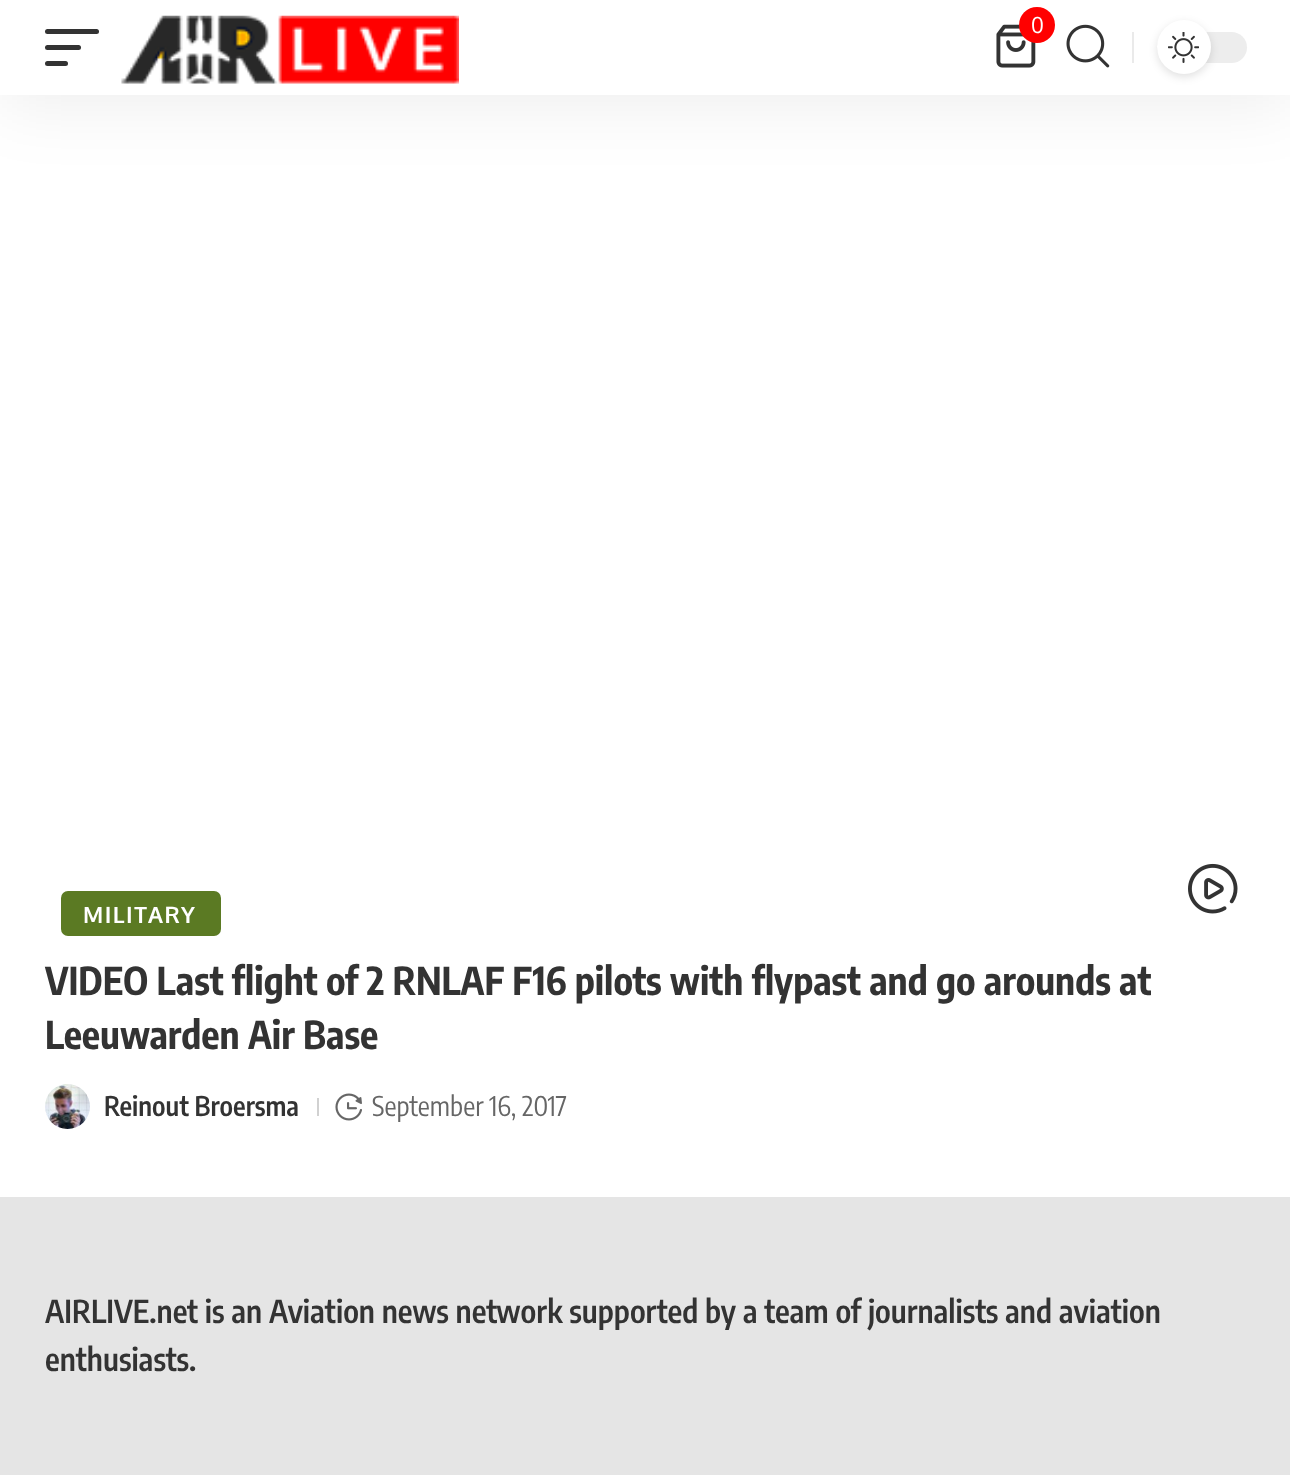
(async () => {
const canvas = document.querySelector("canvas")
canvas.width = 1290
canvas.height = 1475
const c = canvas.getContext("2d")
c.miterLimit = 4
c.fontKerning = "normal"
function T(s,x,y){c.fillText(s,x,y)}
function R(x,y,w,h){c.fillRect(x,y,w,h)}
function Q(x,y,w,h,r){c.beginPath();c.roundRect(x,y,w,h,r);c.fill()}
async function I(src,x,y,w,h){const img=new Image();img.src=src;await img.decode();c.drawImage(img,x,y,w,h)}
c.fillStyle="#fff"
R(0,0,1290,1475)
c.fillStyle="#00000012"
c.filter="blur(34px)"
c.beginPath()
c.rect(0,9,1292,95)
c.fill()
c.filter="none"
c.fillStyle="#fff"
R(0,0,1290,95)
c.fillStyle="#333"
Q(45,29,54,5,2.5)
Q(45,45,36,5,2.5)
Q(45,61,23,5,2.5)
await I("1.png",121,15,338,69)
await I("2.png",996,24,40,44)
c.fillStyle="#f00"
c.beginPath()
c.arc(1037,25,18,0,7)
c.fill()
c.font="22.5px Open Sans"
c.fillStyle="#fff"
T("0",1031,33)
await I("3.png",1066,24,44,44)
c.fillStyle="#eaeaea"
R(1132,32,2,31)
c.fillStyle="#ededed"
Q(1157,32,90,31,15.5)
c.fillStyle="#0000001f"
c.filter="blur(4.5px)"
c.beginPath()
c.roundRect(1157,23,54,54,27)
c.fill()
c.filter="none"
c.fillStyle="#fff"
c.beginPath()
c.arc(1184,47,27,0,7)
c.fill()
await I("4.png",1168,32,31,31)
c.fillStyle="#5b7a23"
Q(61,891,160,45,7)
c.letterSpacing="1.5px"
c.font="bold 22.5px Oxygen"
c.fillStyle="#fff"
T("MILITARY",83,923)
await I("5.png",1188,863,50,51)
c.letterSpacing="0px"
c.font="bold 38.25px Encode Sans Condensed"
c.fillStyle="#333"
T("VIDEO Last flight of 2 RNLAF F16 pilots with flypast and go arounds at",45,995)
T("Leeuwarden Air Base",45,1049)
await I("6.png",45,1084,45,45)
c.font="600 27px Encode Sans Condensed"
T("Reinout Broersma",104,1116)
c.fillStyle="#d1d1d1"
R(317,1098,2,18)
await I("7.png",335,1093,27,28)
c.font="27px Encode Sans Condensed"
c.fillStyle="#666"
T("September 16, 2017",372,1116)
c.fillStyle="#e5e5e5"
R(0,1197,1290,278)
c.font="600 31.5px Encode Sans Condensed"
c.fillStyle="#333"
T("AIRLIVE.net is an Aviation news network supported by a team of journalists and aviation",45,1323)
T("enthusiasts.",45,1371)
})()
